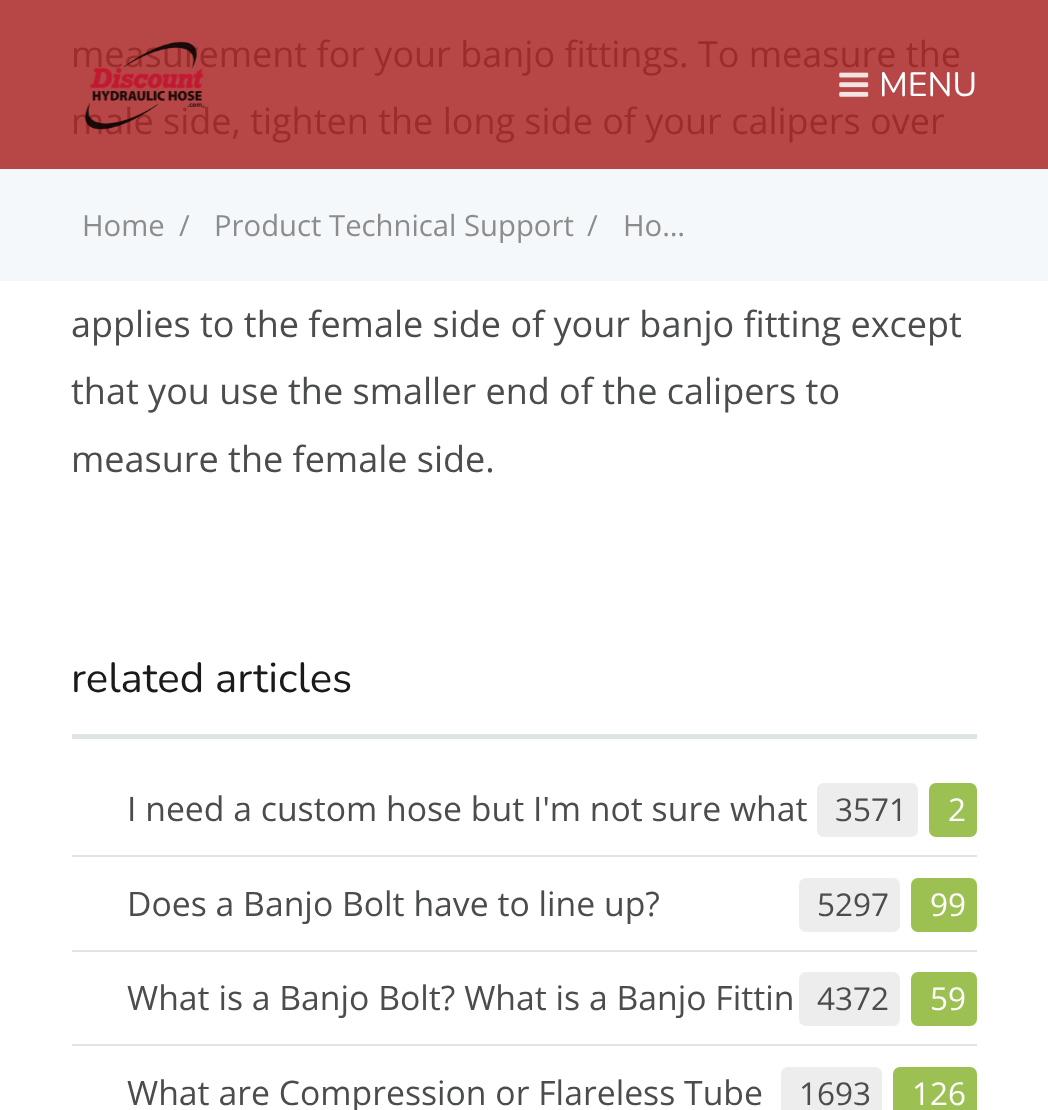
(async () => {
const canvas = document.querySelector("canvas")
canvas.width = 1048
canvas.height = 1110
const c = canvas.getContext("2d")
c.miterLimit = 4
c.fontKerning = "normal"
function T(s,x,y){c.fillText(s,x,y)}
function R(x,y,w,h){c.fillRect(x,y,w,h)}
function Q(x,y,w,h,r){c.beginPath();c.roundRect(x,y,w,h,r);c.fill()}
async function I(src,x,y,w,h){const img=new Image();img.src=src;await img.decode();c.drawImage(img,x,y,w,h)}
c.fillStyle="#fff"
R(0,0,1048,1110)
c.fillStyle="#b74747"
R(0,0,1048,169)
c.font="36px Open Sans"
c.fillStyle="#9c2c2c"
T("measurement for your banjo fittings. To measure the",71,67)
T("male side, tighten the long side of your calipers over",71,134)
c.fillStyle="#4b4d4d"
T("applies to the female side of your banjo fitting except",71,337)
T("that you use the smaller end of the calipers to",71,404)
T("measure the female side.",71,472)
c.fillStyle="#dfe4e6"
R(72,734,905,5)
c.font="42px Nunito"
c.fillStyle="#1a1a1a"
T("related articles",71,692)
c.fillStyle="#e1e3e6"
R(72,855,905,2)
c.font="33.75px Open Sans"
c.fillStyle="#4b4d4d"
T("I need a custom hose but I'm not sure what",127,821)
c.fillStyle="#ededed"
Q(817,783,101,54,7)
c.font="31.5px Open Sans"
c.fillStyle="#4b4d4d"
T("3571",835,821)
c.fillStyle="#9cc051"
Q(929,783,48,54,7)
c.fillStyle="#fff"
T("2",948,821)
c.fillStyle="#e1e3e6"
R(72,950,905,2)
c.font="33.75px Open Sans"
c.fillStyle="#4b4d4d"
T("Does a Banjo Bolt have to line up?",127,916)
c.fillStyle="#ededed"
Q(799,878,101,54,7)
c.font="31.5px Open Sans"
c.fillStyle="#4b4d4d"
T("5297",817,916)
c.fillStyle="#9cc051"
Q(911,878,66,54,7)
c.fillStyle="#fff"
T("99",930,916)
c.fillStyle="#e1e3e6"
R(72,1044,905,2)
c.font="33.75px Open Sans"
c.fillStyle="#4b4d4d"
T("What is a Banjo Bolt? What is a Banjo Fittin",127,1010)
c.fillStyle="#ededed"
Q(799,972,101,54,7)
c.font="31.5px Open Sans"
c.fillStyle="#4b4d4d"
T("4372",817,1010)
c.fillStyle="#9cc051"
Q(911,972,66,54,7)
c.fillStyle="#fff"
T("59",930,1010)
c.font="33.75px Open Sans"
c.fillStyle="#4b4d4d"
T("What are Compression or Flareless Tube",127,1105)
c.fillStyle="#ededed"
Q(781,1067,101,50,7)
c.font="31.5px Open Sans"
c.fillStyle="#4b4d4d"
T("1693",799,1105)
c.fillStyle="#9cc051"
Q(893,1067,84,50,7)
c.fillStyle="#fff"
T("126",912,1105)
await I("1.png",84,41,121,89)
await I("2.png",839,72,30,25)
c.font="33.75px Nunito"
T("MENU",879,96)
c.fillStyle="#f5f8fa"
R(0,169,1048,112)
c.font="29.25px Open Sans"
c.fillStyle="#8c8c8c"
T("Home",82,236)
T("/",179,236)
T("Product Technical Support",214,236)
T("/",587,236)
T("Ho…",623,236)
})()
